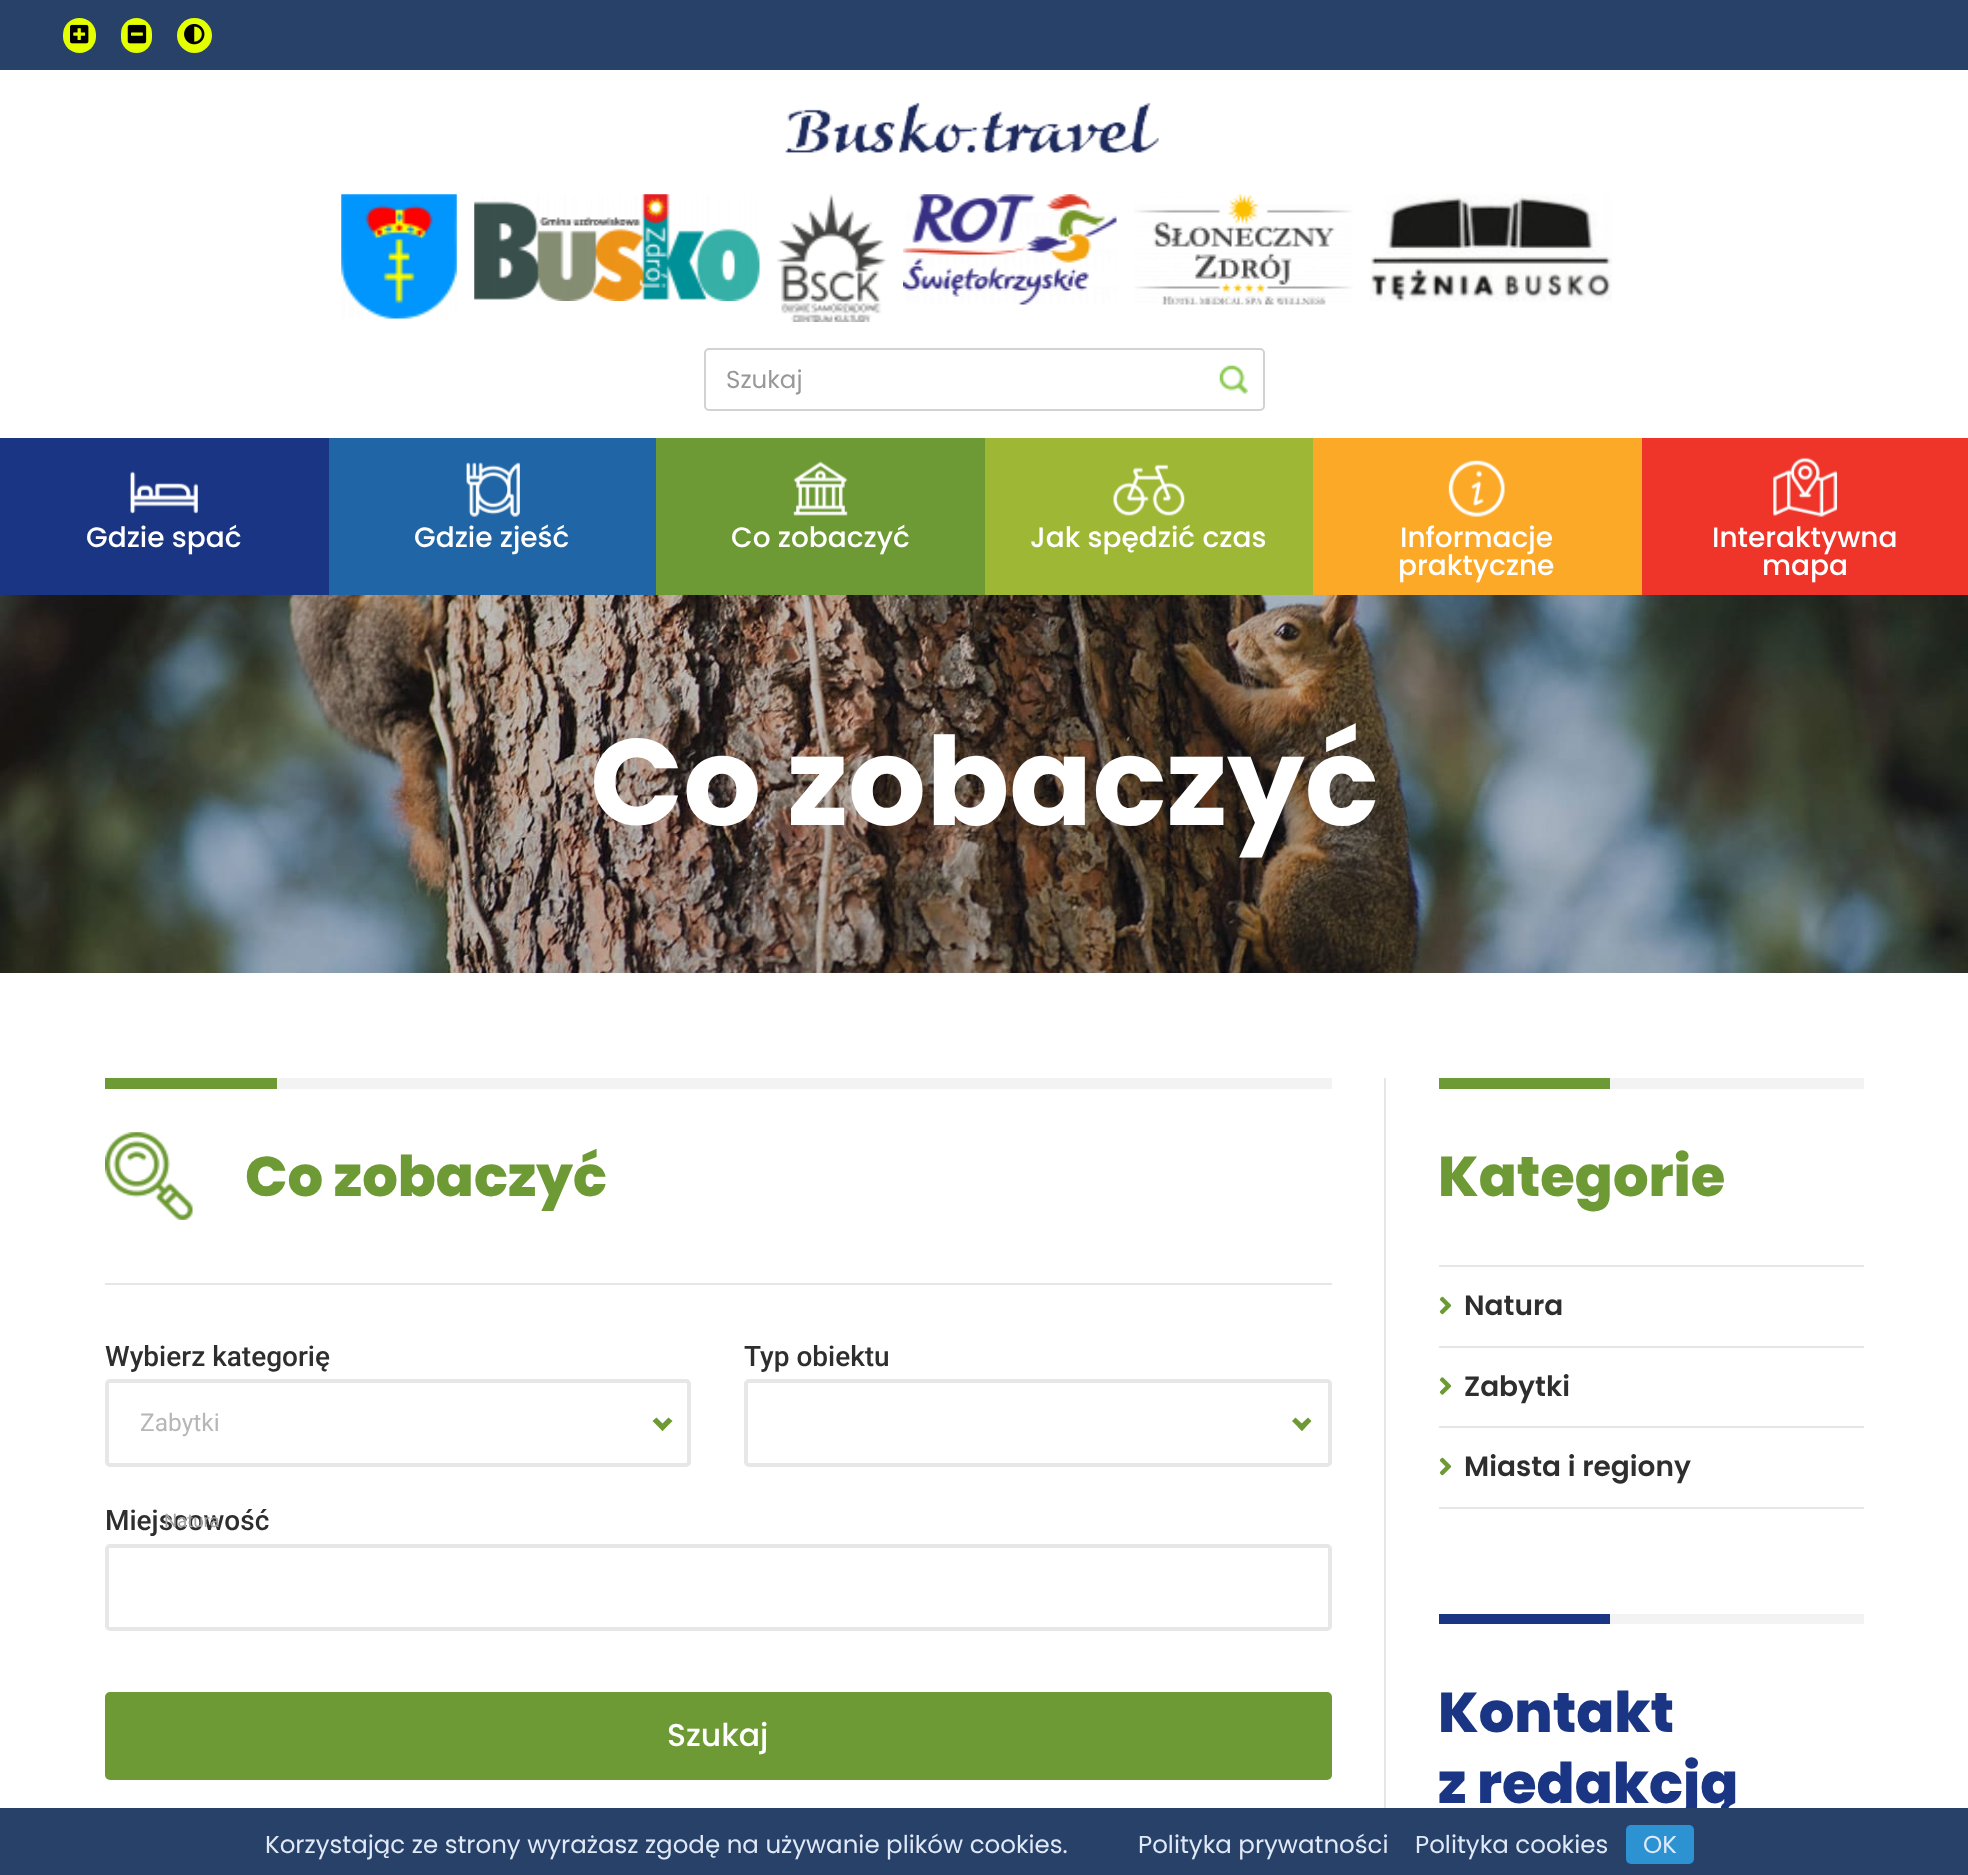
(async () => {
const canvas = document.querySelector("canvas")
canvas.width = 1968
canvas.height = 1875
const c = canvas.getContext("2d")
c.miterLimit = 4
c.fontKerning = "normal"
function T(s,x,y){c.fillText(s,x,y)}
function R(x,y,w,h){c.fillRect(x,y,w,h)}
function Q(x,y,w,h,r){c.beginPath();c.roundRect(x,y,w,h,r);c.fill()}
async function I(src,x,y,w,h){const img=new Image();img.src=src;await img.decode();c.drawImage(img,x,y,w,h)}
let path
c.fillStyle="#fff"
R(0,0,1968,1875)
c.fillStyle="#274169"
R(0,0,1968,70)
c.fillStyle="#e4ff00"
Q(63,18,33,35,16.5)
await I("1.png",70,24,19,20)
Q(121,18,31,35,15.5)
await I("2.png",127,24,20,20)
c.beginPath()
c.arc(194.5,35.5,17.5,0,7)
c.fill()
await I("3.png",184,23,21,22)
await I("4.png",785,102,374,51)
await I("5.png",341,194,116,125)
await I("6.png",474,194,286,107)
await I("7.png",777,194,109,128)
await I("8.png",903,194,214,111)
await I("9.png",1134,194,219,111)
await I("10.png",1370,194,242,108)
c.beginPath()
c.roundRect(705,349,559,61,4)
c.strokeStyle="#d2d2d2"
c.lineWidth=2
c.stroke()
c.font="24.5px Poppins"
c.fillStyle="#989898"
T("Szukaj",726,388)
await I("11.png",1219,365,29,29)
c.fillStyle="#193583"
R(0,438,329,157)
await I("12.png",130,471,68,43)
c.font="500 28px Poppins"
c.fillStyle="#fff"
T("Gdzie spać",86,547)
c.fillStyle="#2065a5"
R(329,438,327,157)
await I("13.png",466,462,54,55)
c.fillStyle="#fff"
T("Gdzie zjeść",414,547)
c.fillStyle="#6e9a35"
R(656,438,329,157)
await I("14.png",793,461,55,55)
c.fillStyle="#fff"
T("Co zobaczyć",731,547)
c.fillStyle="#9eb835"
R(985,438,328,157)
await I("15.png",1113,464,72,52)
c.fillStyle="#fff"
T("Jak spędzić czas",1030,547)
c.fillStyle="#fca928"
R(1313,438,329,157)
await I("16.png",1448,460,57,57)
c.fillStyle="#fff"
T("Informacje",1400,547)
T("praktyczne",1398,575)
c.fillStyle="#ef3429"
R(1642,438,326,157)
await I("17.png",1773,457,65,60)
c.fillStyle="#fff"
T("Interaktywna",1712,547)
T("mapa",1762,575)
await I("18.png",0,595,1968,378)
c.font="bold 122.5px Poppins"
T("Co zobaczyć",590,825)
c.fillStyle="#e6e6e6"
R(1384,1078,2,730)
c.fillStyle="#f3f3f3"
R(277,1078,1055,11)
c.fillStyle="#6e9a35"
R(105,1078,172,11)
await I("19.png",105,1132,88,88)
c.font="800 56px Poppins"
T("Co zobaczyć",245,1196)
c.fillStyle="#e6e6e6"
R(105,1283,1227,2)
c.font="500 28px Roboto"
c.fillStyle="#2e2e2e"
T("Wybierz kategorię",105,1366)
c.beginPath()
c.roundRect(107,1381,582,84,3)
c.strokeStyle="#e7e7e7"
c.lineWidth=4
c.stroke()
c.font="24.5px Roboto"
c.fillStyle="#b7b7b7"
T("Zabytki",140,1431)
c.fillStyle="#6e9a35"
path = new Path2D("M668.5 1417.5l4 3.5l-10 10l-3.5-4z")
c.fill(path)
path = new Path2D("M656.5 1417.5l9.5 9.5l-3.5 4l-10-10z")
c.fill(path)
c.font="500 28px Roboto"
c.fillStyle="#2e2e2e"
T("Miejscowość",105,1530)
c.font="18.5px Roboto"
c.fillStyle="#a3a3a3"
T("Natura",164,1527)
c.font="500 28px Roboto"
c.fillStyle="#2e2e2e"
T("Typ obiektu",744,1366)
c.beginPath()
c.roundRect(746,1381,584,84,3)
c.stroke()
c.fillStyle="#6e9a35"
path = new Path2D("M1308 1417.5l3.5 3.5l-9.5 10l-4-4z")
c.fill(path)
path = new Path2D("M1295.5 1417.5l10 9.5l-3.5 4l-10-10z")
c.fill(path)
c.beginPath()
c.roundRect(107,1546,1223,83,3)
c.stroke()
Q(105,1692,1227,88,5)
c.font="500 31.5px Poppins"
c.fillStyle="#fff"
T("Szukaj",667,1746)
c.fillStyle="#f3f3f3"
R(1610,1078,254,11)
c.fillStyle="#6e9a35"
R(1439,1078,171,11)
c.font="800 56px Poppins"
T("Kategorie",1438,1196)
c.fillStyle="#e6e6e6"
R(1439,1265,425,2)
R(1439,1346,425,2)
await I("20.png",1439,1296,13,19)
c.font="600 28px Poppins"
c.fillStyle="#2e2e2e"
T("Natura",1464,1315)
c.fillStyle="#e6e6e6"
R(1439,1426,425,2)
await I("21.png",1439,1377,13,18)
c.fillStyle="#2e2e2e"
T("Zabytki",1464,1396)
c.fillStyle="#e6e6e6"
R(1439,1507,425,2)
await I("20.png",1439,1457,13,19)
c.fillStyle="#2e2e2e"
T("Miasta i regiony",1464,1476)
c.fillStyle="#f3f3f3"
R(1610,1614,254,10)
c.fillStyle="#193583"
R(1439,1614,171,10)
c.font="800 56px Poppins"
T("Kontakt",1438,1732)
T("z redakcją",1438,1803)
c.fillStyle="#274169"
R(0,1808,1968,67)
c.font="24.5px Poppins"
c.fillStyle="#e0e9f7"
T("Korzystając ze strony wyrażasz zgodę na używanie plików cookies.",265,1853)
T("Polityka prywatności",1138,1853)
T("Polityka cookies",1415,1853)
c.fillStyle="#2c92d2"
Q(1626,1825,68,39,5)
c.fillStyle="#e0e9f7"
T("OK",1643,1853)
})()
